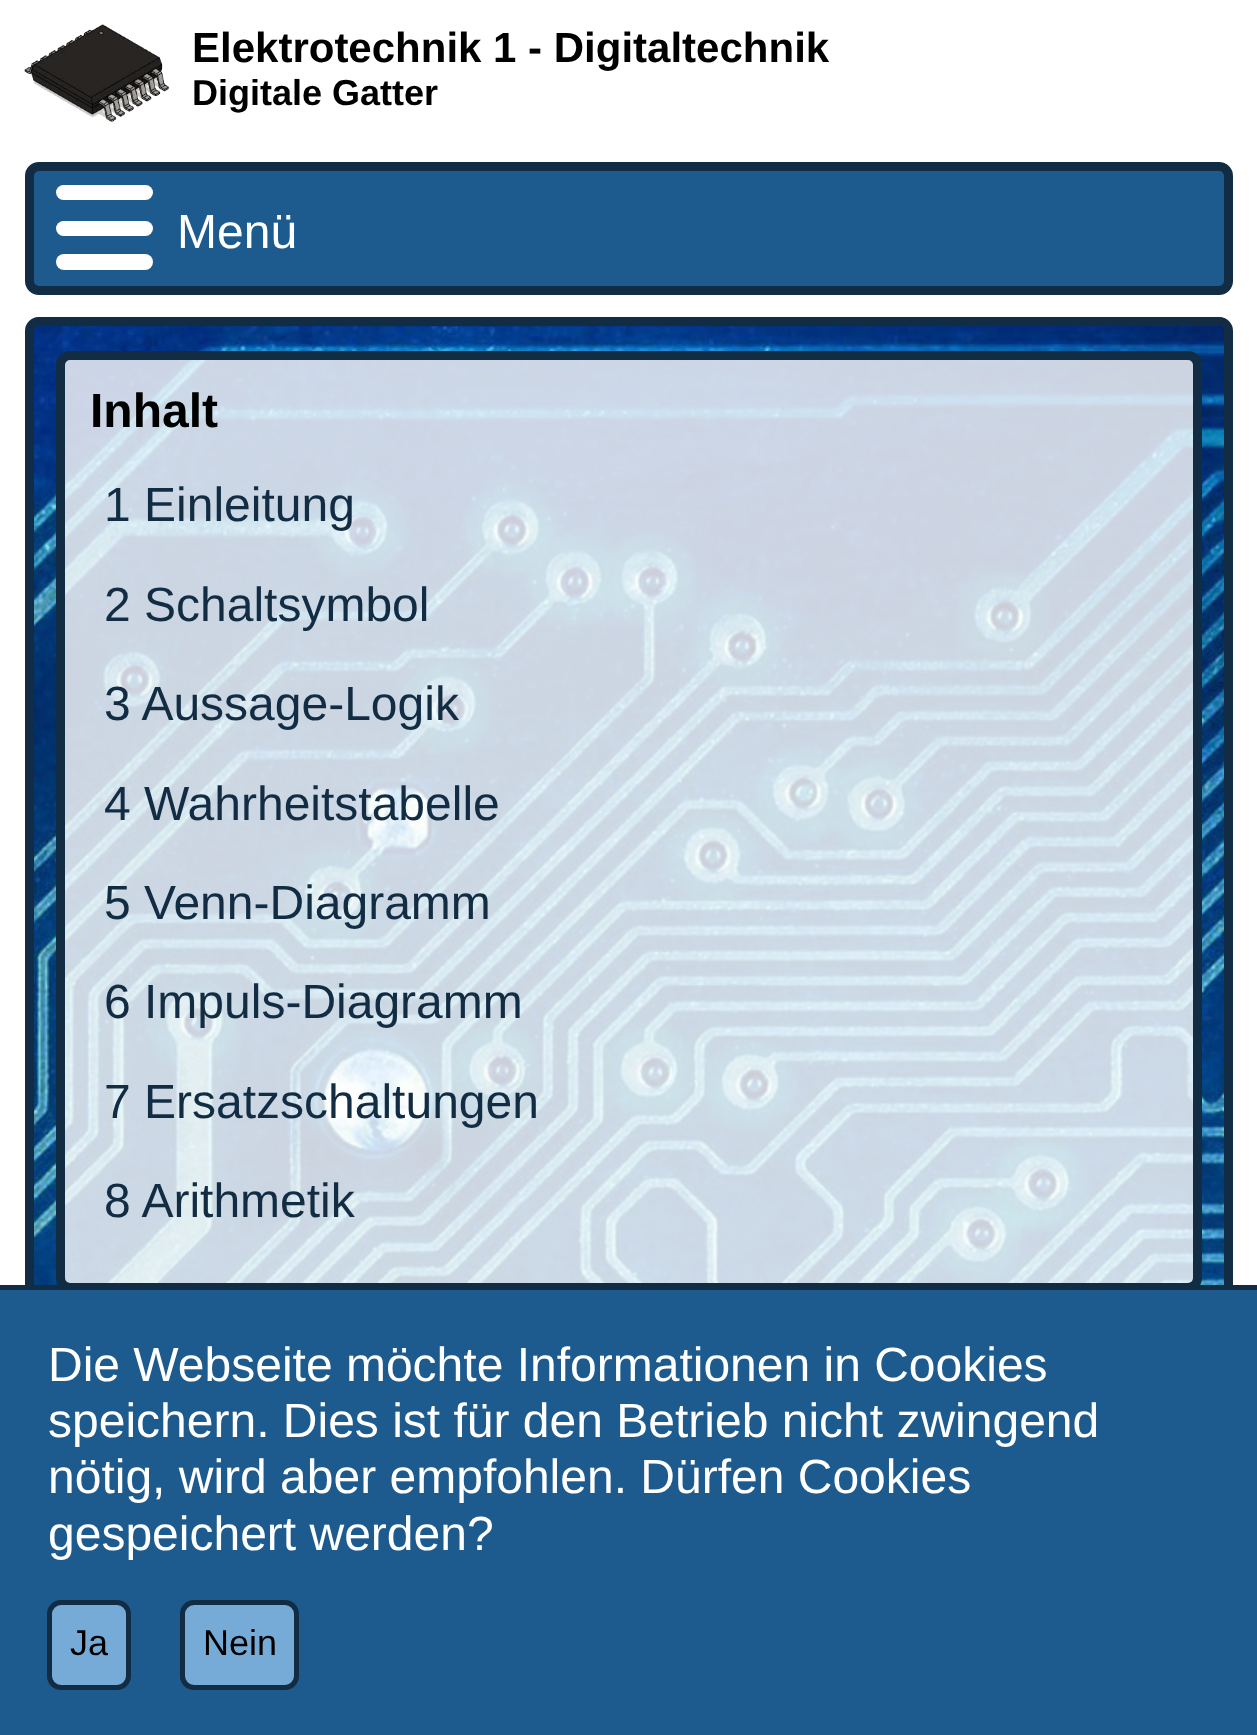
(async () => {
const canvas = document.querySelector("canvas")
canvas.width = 1257
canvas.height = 1735
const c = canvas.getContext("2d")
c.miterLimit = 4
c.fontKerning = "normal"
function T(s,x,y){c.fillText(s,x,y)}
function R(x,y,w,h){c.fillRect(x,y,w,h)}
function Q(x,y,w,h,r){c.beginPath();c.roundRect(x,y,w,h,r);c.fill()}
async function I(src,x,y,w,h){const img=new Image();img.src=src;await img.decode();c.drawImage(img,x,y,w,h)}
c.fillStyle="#fff"
R(0,0,1257,1735)
await I("1.png",24,24,145,98)
c.font="bold 42px Liberation Sans"
c.fillStyle="#000"
T("Elektrotechnik 1 - Digitaltechnik",192,62)
c.font="bold 36px Liberation Sans"
T("Digitale Gatter",192,105)
c.fillStyle="#1d5b8f"
c.beginPath()
c.roundRect(29.5,166.5,1199,124,9.5)
c.fill()
c.strokeStyle="#122d43"
c.lineWidth=9
c.stroke()
c.fillStyle="#fff"
Q(56,185,97,15,7.5)
Q(56,221,97,15,7.5)
Q(56,254,97,16,8)
c.font="48px Liberation Sans"
T("Menü",177,248)
await I("2.png",33,317,1194,968)
c.beginPath()
c.roundRect(29.5,321.5,1199,999,9.5)
c.stroke()
c.fillStyle="#ffffffcc"
c.beginPath()
c.roundRect(60.5,355.5,1137,932,9.5)
c.fill()
c.stroke()
c.font="bold 48px Liberation Sans"
c.fillStyle="#000"
T("Inhalt",90,427)
c.font="48px Liberation Sans"
c.fillStyle="#122d43"
T("1 Einleitung",104,521)
T("2 Schaltsymbol",104,621)
T("3 Aussage-Logik",104,720)
T("4 Wahrheitstabelle",104,820)
T("5 Venn-Diagramm",104,919)
T("6 Impuls-Diagramm",104,1018)
T("7 Ersatzschaltungen",104,1118)
T("8 Arithmetik",104,1217)
c.fillStyle="#1d5b8f"
R(0,1290,1257,445)
c.fillStyle="#122d43"
R(0,1285,1257,5)
c.fillStyle="#fff"
T("Die Webseite möchte Informationen in Cookies",48,1381)
T("speichern. Dies ist für den Betrieb nicht zwingend",48,1437)
T("nötig, wird aber empfohlen. Dürfen Cookies",48,1493)
T("gespeichert werden?",48,1550)
c.fillStyle="#76abd8"
c.beginPath()
c.roundRect(49.5,1602.5,79,85,11.5)
c.fill()
c.lineWidth=5
c.stroke()
c.font="36px Liberation Sans"
c.fillStyle="#000"
T("Ja",70,1655)
c.fillStyle="#76abd8"
c.beginPath()
c.roundRect(182.5,1602.5,114,85,11.5)
c.fill()
c.stroke()
c.fillStyle="#000"
T("Nein",203,1655)
})()
